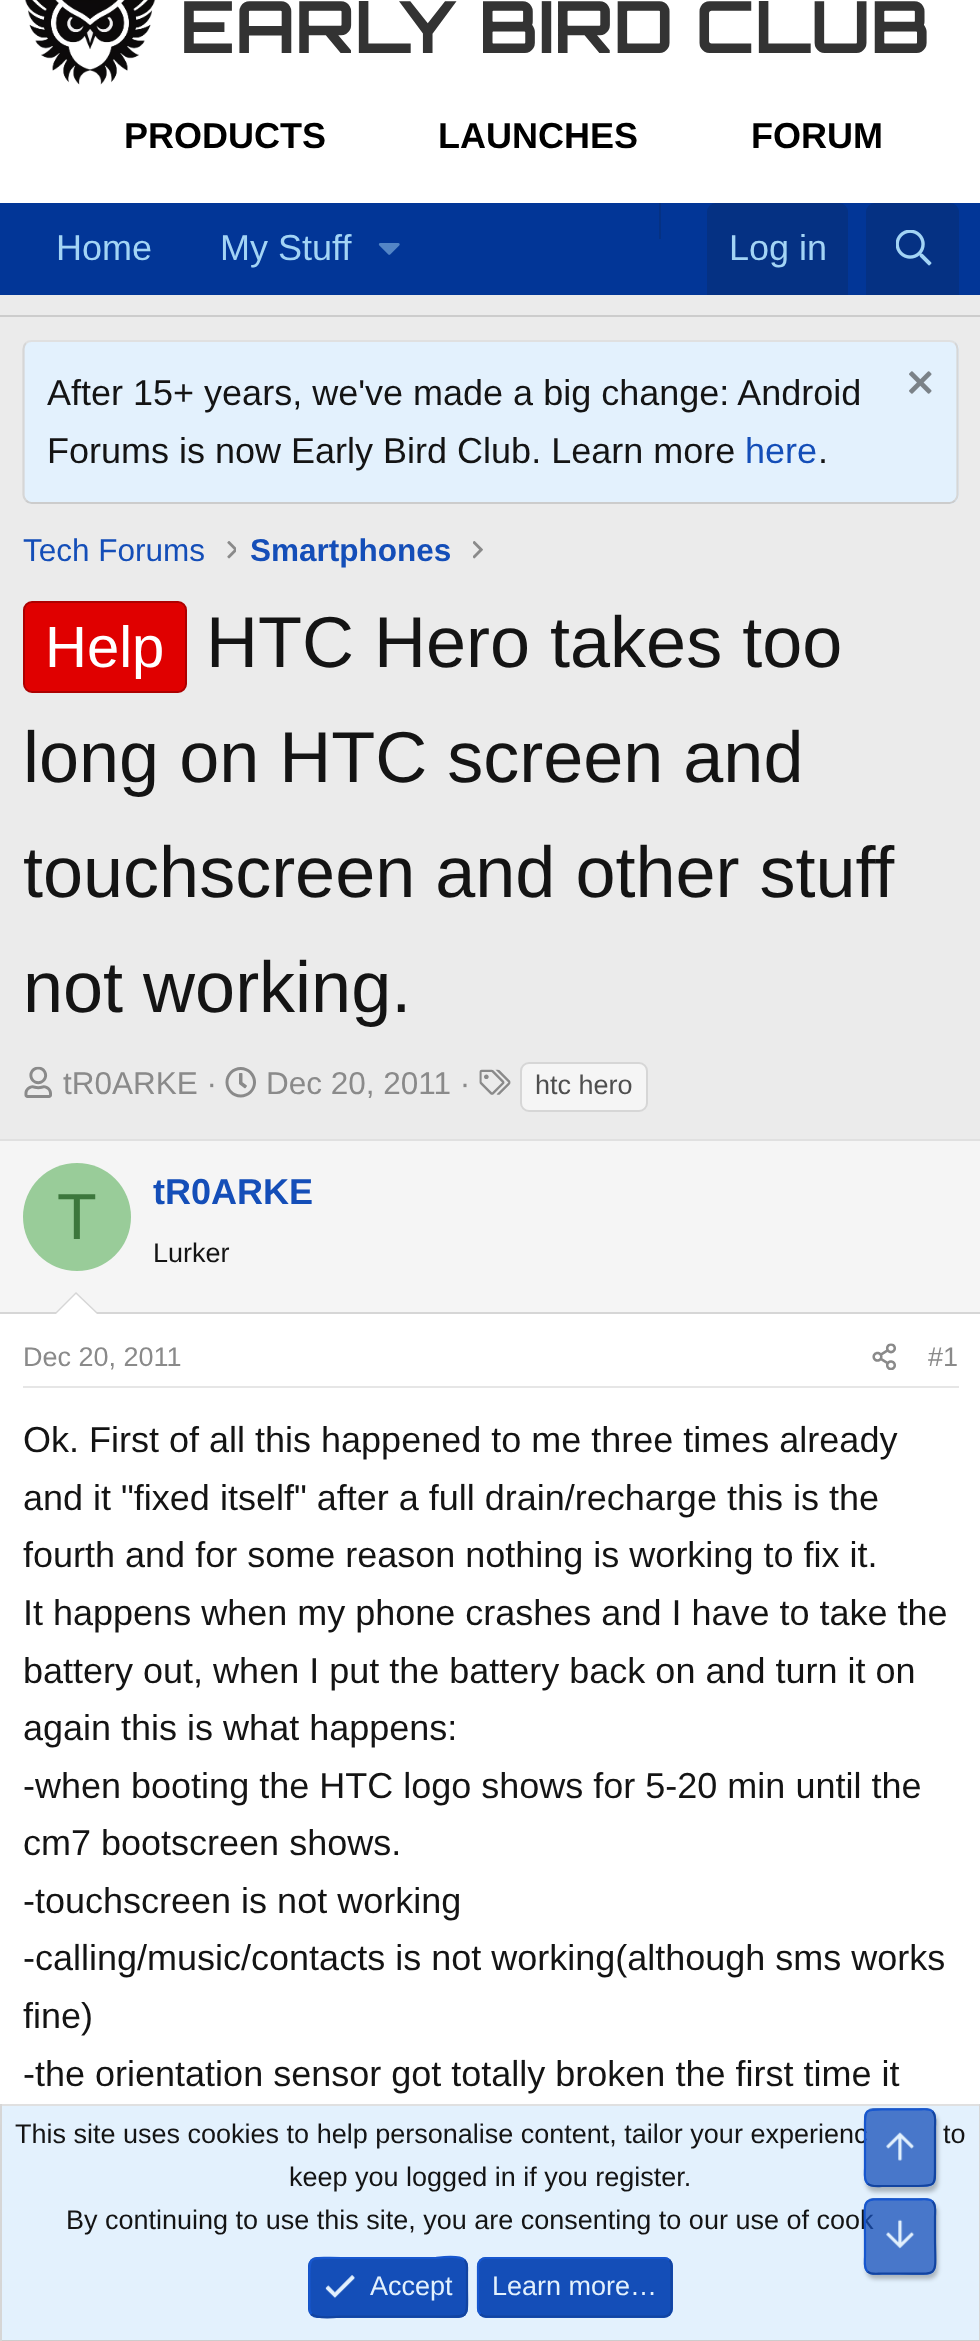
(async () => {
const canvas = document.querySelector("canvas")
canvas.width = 980
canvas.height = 2341
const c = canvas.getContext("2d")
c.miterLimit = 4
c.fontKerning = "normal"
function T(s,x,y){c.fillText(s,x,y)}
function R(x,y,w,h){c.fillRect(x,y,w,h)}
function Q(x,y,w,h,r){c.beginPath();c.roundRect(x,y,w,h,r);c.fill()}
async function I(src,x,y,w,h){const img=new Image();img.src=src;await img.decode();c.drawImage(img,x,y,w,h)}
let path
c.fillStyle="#ebebeb"
R(0,0,980,2341)
c.fillStyle="#fff"
R(0,0,980,203)
await I("1.png",25,0,131,85)
c.font="bold 72px Orbitron"
c.fillStyle="#333"
T("EARLY BIRD CLUB",180,53)
c.font="bold 36px Liberation Sans"
c.fillStyle="#000"
T("PRODUCTS",124,148)
T("LAUNCHES",438,148)
T("FORUM",751,148)
c.fillStyle="#023697"
R(0,203,980,92)
c.font="36px Liberation Sans"
c.fillStyle="#a3d4f5"
T("Home",56,260)
T("My Stuff",220,260)
await I("2.png",378,243,22,12)
c.fillStyle="#053183"
R(659,203,2,36)
c.beginPath()
c.roundRect(707,203,141,92,[9,9,0,0])
c.fill()
c.fillStyle="#a3d4f5"
T("Log in",729,260)
c.fillStyle="#053183"
c.beginPath()
c.roundRect(866,203,93,92,[9,9,0,0])
c.fill()
await I("3.png",896,230,36,36)
c.fillStyle="#ccc"
R(0,315,980,2)
c.fillStyle="#e3f1fd"
Q(23,340,936,164,9)
path = new Path2D("M26 343c1.5-1.5 3.5-2 5.5-2h918c2 0 4 .5 5.5 2")
c.strokeStyle="#e0e0e0"
c.lineWidth=2.2
c.stroke(path)
path = new Path2D("M955 343c1.5 1.5 2.5 3.5 2.5 6v146c0 2-1 4-2.5 5.5")
c.strokeStyle="#d6d6d6"
c.stroke(path)
path = new Path2D("M955 500.5c-1.5 1.5-3.5 2.5-5.5 2.5h-918c-2 0-4-1-5.5-2.5")
c.strokeStyle="#ccc"
c.stroke(path)
path = new Path2D("M26 500.5c-1.5-1.5-2.5-3.5-2.5-5.5v-146c0-2.5 1-4.5 2.5-6")
c.strokeStyle="#d6d6d6"
c.stroke(path)
c.fillStyle="#141414"
T("After 15+ years, we've made a big change: Android",47,405)
await I("4.png",909,371,23,23)
T("Forums is now Early Bird Club. Learn more",47,463)
c.fillStyle="#144eb8"
T("here",745,463)
c.fillStyle="#141414"
T(".",818,463)
c.font="31.5px Liberation Sans"
c.fillStyle="#144eb8"
T("Tech Forums",23,561)
await I("5.png",227,541,9,18)
c.font="bold 31.5px Liberation Sans"
T("Smartphones",250,561)
await I("6.png",473,541,10,18)
c.fillStyle="#e00000"
c.beginPath()
c.roundRect(24,602,162,90,8)
c.fill()
c.strokeStyle="#ad0000"
c.lineWidth=2
c.stroke()
c.font="58px Liberation Sans"
c.fillStyle="#fff"
T("Help",45,667)
c.font="72px Liberation Sans"
c.fillStyle="#141414"
T("HTC Hero takes too",206,667)
T("long on HTC screen and",23,782)
T("touchscreen and other stuff",23,897)
T("not working.",23,1012)
await I("7.png",24,1066,28,32)
c.font="31.5px Liberation Sans"
c.fillStyle="#8a8a8a"
T("tR0ARKE ·",63,1094)
await I("8.png",225,1067,31,31)
T("Dec 20, 2011 ·",266,1094)
await I("9.png",479,1069,32,26)
c.fillStyle="#f5f5f5"
c.beginPath()
c.roundRect(521,1063,126,48,8)
c.fill()
c.strokeStyle="#d6d6d6"
c.stroke()
c.font="27px Liberation Sans"
c.fillStyle="#4f4f4f"
T("htc hero",535,1094)
c.fillStyle="#fff"
R(0,1314,980,790)
c.fillStyle="#e0e0e0"
R(0,1139,980,2)
c.fillStyle="#f5f5f5"
R(0,1141,980,171)
c.fillStyle="#d6d6d6"
R(0,1312,980,2)
c.fillStyle="#9c9"
c.beginPath()
c.arc(77,1217,54,0,7)
c.fill()
c.font="65px Liberation Sans"
c.fillStyle="#3c773c"
T("T",57,1239)
c.font="bold 36px Liberation Sans"
c.fillStyle="#144eb8"
T("tR0ARKE",153,1204)
c.font="27px Liberation Sans"
c.fillStyle="#141414"
T("Lurker",153,1262)
c.fillStyle="#d6d6d6"
path = new Path2D("M99 1314h-45l22-22z")
c.fill(path)
c.fillStyle="#fff"
path = new Path2D("M97 1314h-41l20-20z")
c.fill(path)
c.fillStyle="#e6e6e6"
R(23,1386,936,2)
c.fillStyle="#8a8a8a"
T("Dec 20, 2011",23,1366)
await I("10.png",872,1343,24,27)
T("#1",928,1366)
c.font="36px Liberation Sans"
c.fillStyle="#141414"
T("Ok. First of all this happened to me three times already",23,1452)
T("and it \"fixed itself\" after a full drain/recharge this is the",23,1510)
T("fourth and for some reason nothing is working to fix it.",23,1567)
T("It happens when my phone crashes and I have to take the",23,1625)
T("battery out, when I put the battery back on and turn it on",23,1683)
T("again this is what happens:",23,1740)
T("-when booting the HTC logo shows for 5-20 min until the",23,1798)
T("cm7 bootscreen shows.",23,1855)
T("-touchscreen is not working",23,1913)
T("-calling/music/contacts is not working(although sms works",23,1970)
T("fine)",23,2028)
T("-the orientation sensor got totally broken the first time it",23,2086)
c.fillStyle="#e3f1fd"
R(2,2106,977,234)
c.save()
path = new Path2D("M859 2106h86v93h-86zm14 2h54c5 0 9 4 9 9v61c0 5-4 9-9 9h-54c-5 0-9-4-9-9v-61c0-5 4-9 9-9z")
c.clip(path,"evenodd")
c.fillStyle="#00000040"
c.filter="blur(2px)"
c.beginPath()
c.roundRect(866,2113,72,79,9)
c.fill()
c.filter="none"
c.restore()
c.font="27px Liberation Sans"
c.fillStyle="#141414"
T("This site uses cookies to help personalise content, tailor your experienc",15,2143)
c.fillStyle="#144eb8bf"
Q(864,2108,72,79,9)
path = new Path2D("M932.5 2111.5c4 4 2.5 11.5 2.5 16v40.5c0 17 .5 18-17 18h-36c-4.5 0-11 1-14.5-2.5")
c.strokeStyle="#1244a1"
c.lineWidth=2.2
c.stroke(path)
path = new Path2D("M867.5 2183.5c-4-4-2.5-11.5-2.5-15.5v-40.5c0-17.5-.5-18 17-18h36c4.5 0 11-1.5 14.5 2")
c.strokeStyle="#1757cf"
c.stroke(path)
await I("11.png",886,2132,29,29)
c.save()
path = new Path2D("M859 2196h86v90h-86zm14 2h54c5 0 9 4 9 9v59c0 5-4 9-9 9h-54c-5 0-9-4-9-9v-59c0-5 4-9 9-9z")
c.clip(path,"evenodd")
c.fillStyle="#00000040"
c.filter="blur(2px)"
c.beginPath()
c.roundRect(866,2203,72,76,9)
c.fill()
c.filter="none"
c.restore()
c.fillStyle="#141414"
T("By continuing to use this site, you are consenting to our use of cook",66,2229)
c.fillStyle="#144eb8bf"
Q(864,2198,72,77,9)
path = new Path2D("M932.5 2201.5c4 4 2.5 11 2.5 15.5v19.5c0 42.5 6.5 37-35 37h-18c-4.5 0-11 1.5-14.5-2")
c.strokeStyle="#1244a1"
c.stroke(path)
path = new Path2D("M867.5 2271.5c-4-4-2.5-11-2.5-15.5v-19.5c0-42.5-6.5-37 35-37h18c4.5 0 11-1.5 14.5 2")
c.strokeStyle="#1757cf"
c.stroke(path)
await I("12.png",886,2219,29,30)
c.fillStyle="#e0e0e0"
R(0,2104,980,2)
c.fillStyle="#d6d6d6"
R(979,2104,1,237)
c.fillStyle="#ccc"
R(0,2340,980,1)
c.fillStyle="#d6d6d6"
R(0,2104,2,237)
c.fillStyle="#141414"
T("to",943,2143)
T("keep you logged in if you register.",289,2186)
c.fillStyle="#144eb8"
Q(308,2257,160,61,9)
path = new Path2D("M464.5 2260c3.5 3.5 2.5 8.5 2.5 13v14c0 34 4 29.5-31.5 29.5h-94.5c-1 0-23.5 3-29.5-2.5")
c.strokeStyle="#1244a1"
c.stroke(path)
path = new Path2D("M311.5 2314c-3-3-2-8.5-2-12.5v-14.5c0-33.5-4-29 31.5-29h94.5c1 0 23.5-3.5 29 2")
c.strokeStyle="#1757cf"
c.stroke(path)
await I("13.png",325,2275,30,24)
c.fillStyle="#e3f1fd"
T("Accept",370,2295)
c.fillStyle="#144eb8"
Q(477,2257,196,61,9)
path = new Path2D("M669.5 2260c1.5 1.5 2 3.5 2 6v42.5c0 2-.5 4-2 5.5c-1.5 1.5-3.5 2.5-5.5 2.5h-178c-2 0-4-1-5.5-2.5")
c.strokeStyle="#1244a1"
c.stroke(path)
path = new Path2D("M480.5 2314c-1.5-1.5-2.5-3.5-2.5-5.5v-42.5c0-2.5 1-4.5 2.5-6c1.5-1.5 3.5-2 5.5-2h178c2 0 4 .5 5.5 2")
c.strokeStyle="#1757cf"
c.stroke(path)
c.fillStyle="#e3f1fd"
T("Learn more…",492,2295)
})()
